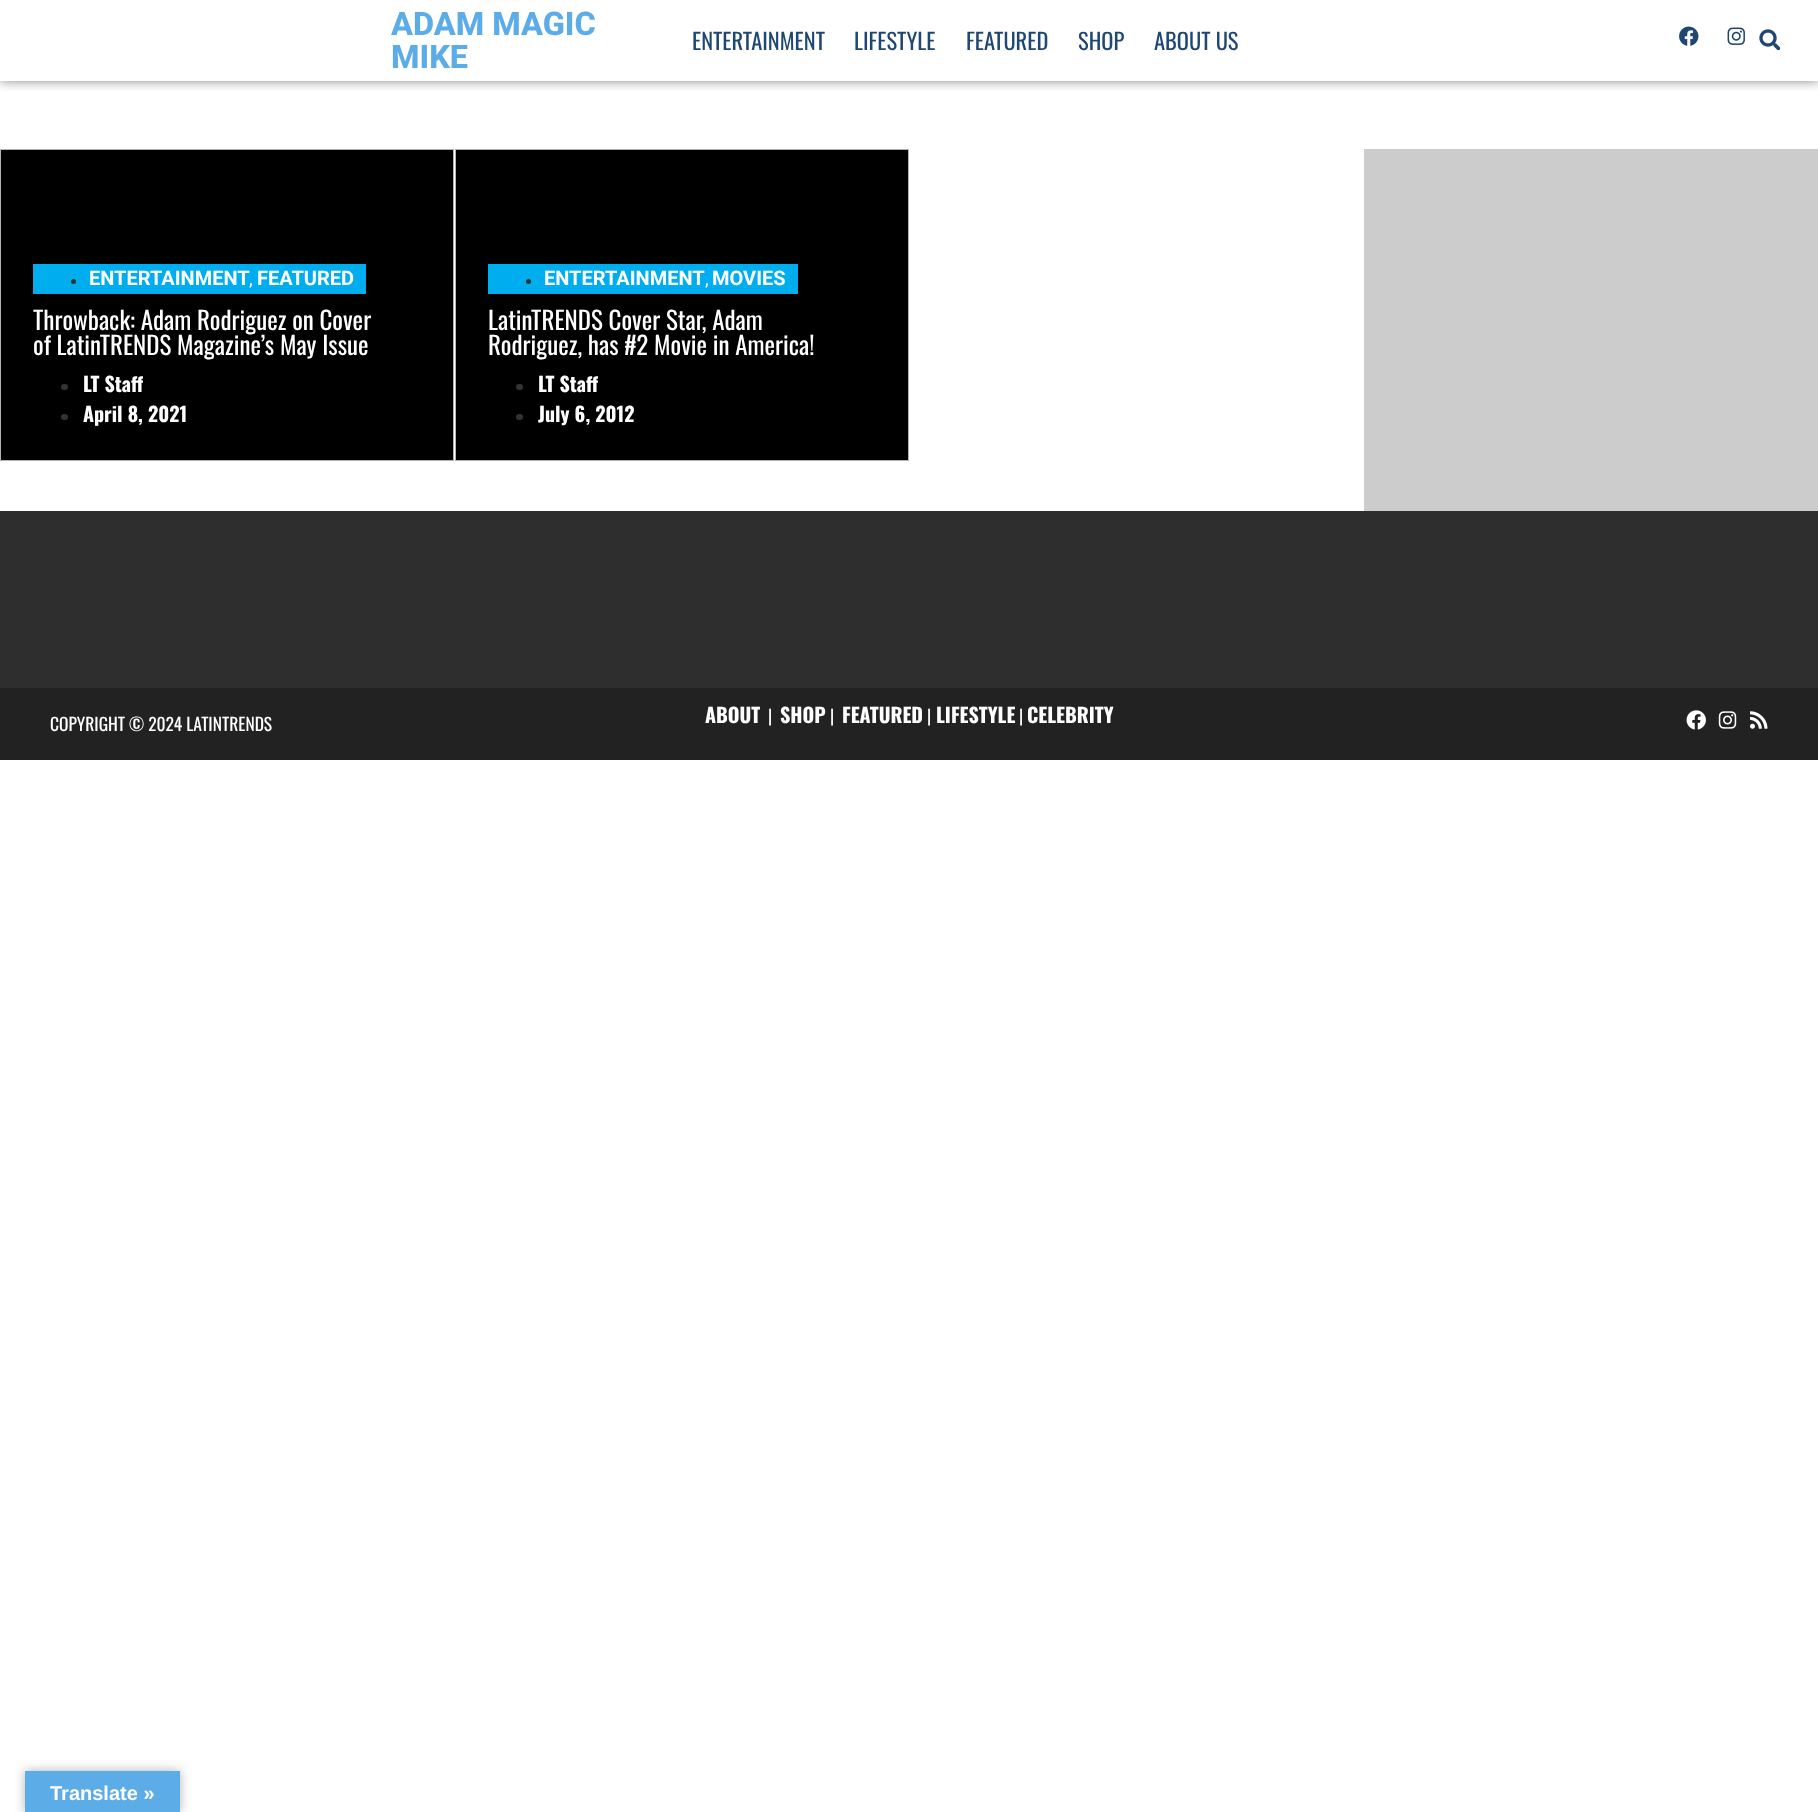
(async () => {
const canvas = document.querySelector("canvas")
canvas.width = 1818
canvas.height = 1812
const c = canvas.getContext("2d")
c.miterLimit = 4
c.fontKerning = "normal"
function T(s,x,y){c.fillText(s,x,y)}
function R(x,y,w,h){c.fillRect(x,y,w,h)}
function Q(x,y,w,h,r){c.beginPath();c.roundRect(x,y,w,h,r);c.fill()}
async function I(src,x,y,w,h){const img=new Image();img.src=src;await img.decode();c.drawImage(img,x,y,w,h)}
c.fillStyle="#fff"
R(0,0,1818,1812)
c.save()
c.beginPath()
c.rect(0,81,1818,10)
c.clip()
c.fillStyle="#00000078"
c.filter="blur(6px)"
c.beginPath()
c.rect(0,0,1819,81)
c.fill()
c.filter="none"
c.restore()
c.font="800 32.5px Roboto"
c.fillStyle="#5cace7"
T("ADAM MAGIC",391,35)
T("MIKE",391,68)
c.font="22.5px Oswald"
c.fillStyle="#1f4773"
T("ENTERTAINMENT",692,50)
T("LIFESTYLE",854,50)
T("FEATURED",966,50)
T("SHOP",1078,50)
T("ABOUT US",1154,50)
await I("1.png",1679,26,20,20)
await I("2.png",1727,27,18,18)
await I("3.png",1759,29,21,21)
c.fillStyle="#000"
c.beginPath()
c.rect(.5,149.5,453,311)
c.fill()
c.strokeStyle="#b3b3b3"
c.stroke()
c.fillStyle="#00aeef"
R(33,264,333,30)
c.fillStyle="#333"
c.beginPath()
c.arc(73.5,281.5,2.5,0,7)
c.fill()
c.font="bold 20px Roboto"
c.fillStyle="#fff"
T("ENTERTAINMENT",89,285)
T("FEATURED",257,285)
c.font="bold 15px Roboto"
T(",",249,285)
c.font="25px Oswald"
T("Throwback: Adam Rodriguez on Cover",33,330)
T("of LatinTRENDS Magazine’s May Issue",33,355)
c.fillStyle="#333"
Q(61,384,7,6,3)
c.font="bold 20px Oswald"
c.fillStyle="#fff"
T("LT Staff",83,392)
c.fillStyle="#333"
Q(61,414,7,6,3)
c.fillStyle="#fff"
T("April 8, 2021",83,422)
c.fillStyle="#000"
c.beginPath()
c.rect(455.5,149.5,453,311)
c.fill()
c.stroke()
c.fillStyle="#00aeef"
R(488,264,310,30)
c.fillStyle="#333"
c.beginPath()
c.arc(528.5,281.5,2.5,0,7)
c.fill()
c.font="bold 20px Roboto"
c.fillStyle="#fff"
T("ENTERTAINMENT",544,285)
T("MOVIES",712,285)
c.font="bold 15px Roboto"
T(",",705,285)
c.font="25px Oswald"
T("LatinTRENDS Cover Star, Adam",488,330)
T("Rodriguez, has #2 Movie in America!",488,355)
c.fillStyle="#333"
Q(516,384,7,6,3)
c.font="bold 20px Oswald"
c.fillStyle="#fff"
T("LT Staff",538,392)
c.fillStyle="#333"
Q(516,414,7,6,3)
c.fillStyle="#fff"
T("July 6, 2012",538,422)
c.fillStyle="#ccc"
R(1364,149,454,362)
c.fillStyle="#2e2e2e"
R(0,511,1818,177)
c.fillStyle="#222"
R(0,688,1818,72)
c.font="17.5px Oswald"
c.fillStyle="#fff"
T("COPYRIGHT © 2024 LATINTRENDS",50,731)
c.font="bold 20px Oswald"
T("ABOUT",705,723)
c.font="17.5px Oswald"
T("|",768,723)
c.font="bold 20px Oswald"
T("SHOP",780,723)
c.font="17.5px Oswald"
T("|",830,723)
c.font="bold 20px Oswald"
T("FEATURED",842,723)
c.font="17.5px Oswald"
T("|",927,723)
c.font="bold 20px Oswald"
T("LIFESTYLE",936,723)
c.font="17.5px Oswald"
T("|",1019,723)
c.font="bold 20px Oswald"
T("CELEBRITY",1027,723)
await I("4.png",1686,710,20,20)
await I("5.png",1718,711,19,18)
await I("6.png",1750,711,18,18)
c.fillStyle="#0000004d"
c.filter="blur(5.5px)"
c.beginPath()
c.rect(25,1771,155,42)
c.fill()
c.filter="none"
c.fillStyle="#5cace7"
R(25,1771,155,41)
c.font="bold 20px Liberation Sans"
c.fillStyle="#fff"
T("Translate »",50,1800)
})()
